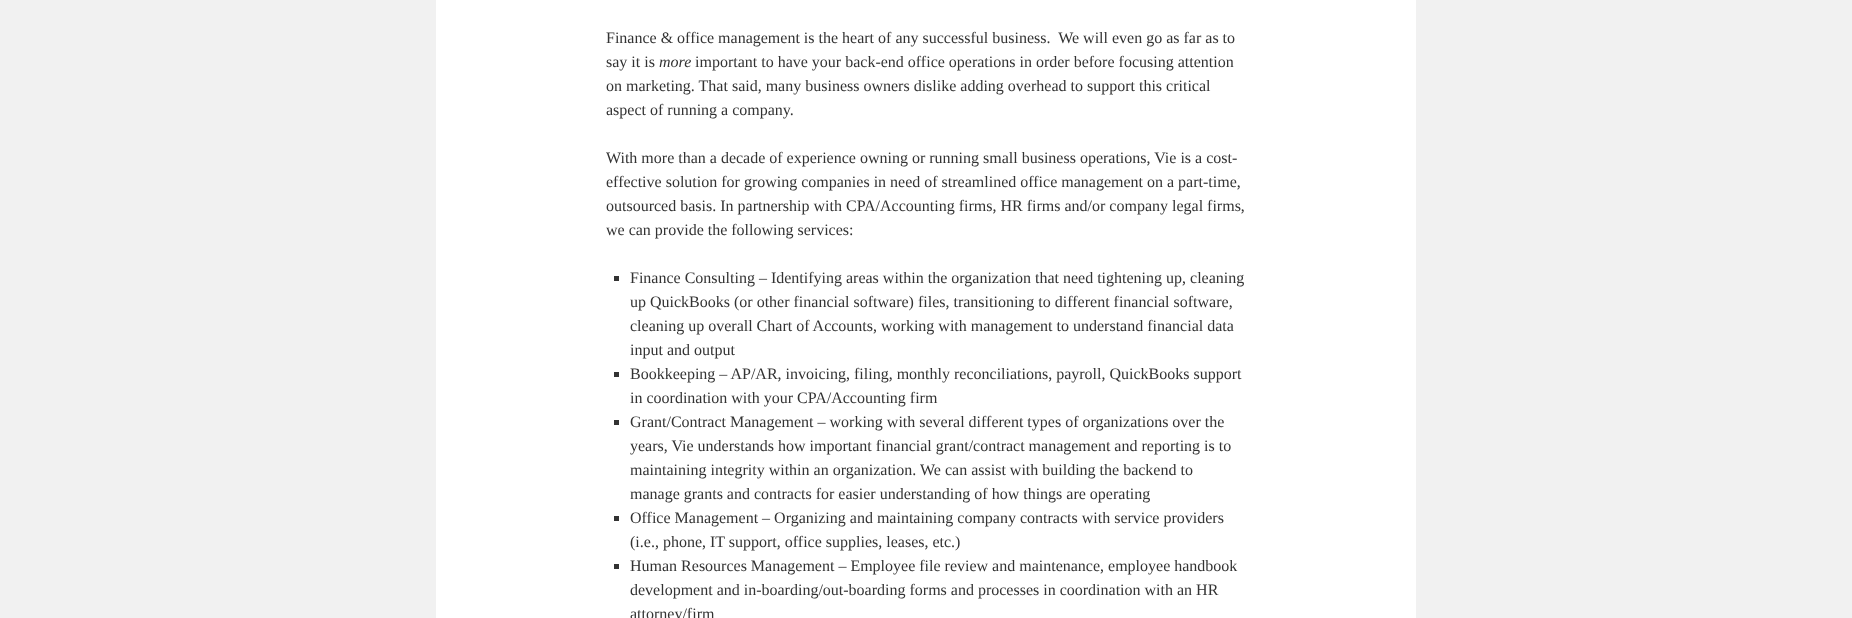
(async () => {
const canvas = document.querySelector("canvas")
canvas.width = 1852
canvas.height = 618
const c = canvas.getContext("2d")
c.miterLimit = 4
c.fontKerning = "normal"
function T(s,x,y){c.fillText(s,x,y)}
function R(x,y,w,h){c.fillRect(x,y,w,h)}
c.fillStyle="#f1f1f1"
R(0,0,1852,618)
c.fillStyle="#fff"
R(436,0,980,618)
c.font="16px Liberation Serif"
c.fillStyle="#333"
T("Finance & office management is the heart of any successful business.  We will even go as far as to",606,43)
T("say it is",606,67)
c.font="italic 16px Liberation Serif"
T("more",659,67)
c.font="16px Liberation Serif"
T("important to have your back-end office operations in order before focusing attention",695,67)
T("on marketing. That said, many business owners dislike adding overhead to support this critical",606,91)
T("aspect of running a company.",606,115)
T("With more than a decade of experience owning or running small business operations, Vie is a cost-",606,163)
T("effective solution for growing companies in need of streamlined office management on a part-time,",606,187)
T("outsourced basis. In partnership with CPA/Accounting firms, HR firms and/or company legal firms,",606,211)
T("we can provide the following services:",606,235)
R(614,276,5,5)
T("Finance Consulting – Identifying areas within the organization that need tightening up, cleaning",630,283)
T("up QuickBooks (or other financial software) files, transitioning to different financial software,",630,307)
T("cleaning up overall Chart of Accounts, working with management to understand financial data",630,331)
T("input and output",630,355)
R(614,372,5,5)
T("Bookkeeping – AP/AR, invoicing, filing, monthly reconciliations, payroll, QuickBooks support",630,379)
T("in coordination with your CPA/Accounting firm",630,403)
R(614,420,5,5)
T("Grant/Contract Management – working with several different types of organizations over the",630,427)
T("years, Vie understands how important financial grant/contract management and reporting is to",630,451)
T("maintaining integrity within an organization. We can assist with building the backend to",630,475)
T("manage grants and contracts for easier understanding of how things are operating",630,499)
R(614,516,5,5)
T("Office Management – Organizing and maintaining company contracts with service providers",630,523)
T("(i.e., phone, IT support, office supplies, leases, etc.)",630,547)
R(614,564,5,5)
T("Human Resources Management – Employee file review and maintenance, employee handbook",630,571)
T("development and in-boarding/out-boarding forms and processes in coordination with an HR",630,595)
T("attorney/firm",630,619)
})()
